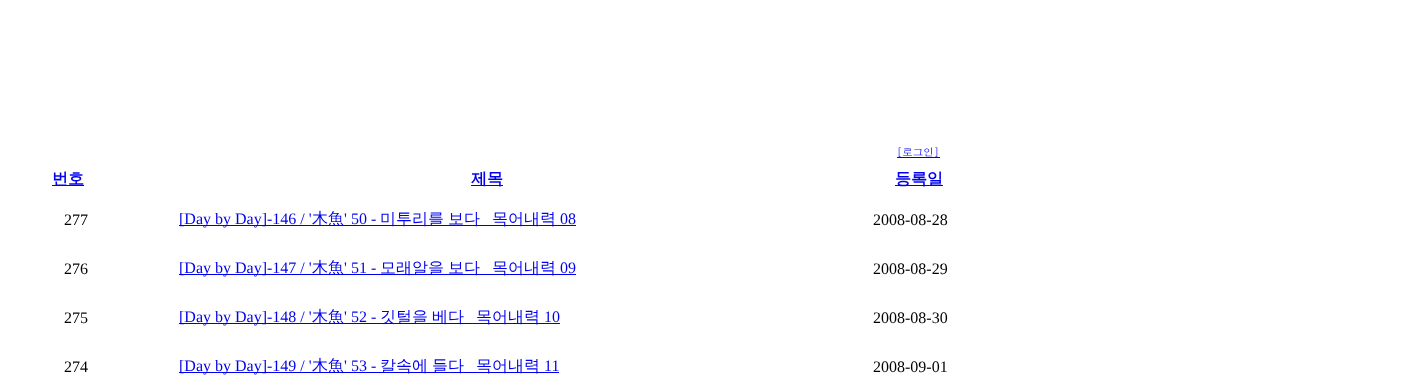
(async () => {
const canvas = document.querySelector("canvas")
canvas.width = 1427
canvas.height = 392
const c = canvas.getContext("2d")
c.miterLimit = 4
c.fontKerning = "normal"
function T(s,x,y){c.fillText(s,x,y)}
function R(x,y,w,h){c.fillRect(x,y,w,h)}
c.fillStyle="#fff"
R(0,0,1427,392)
c.fillStyle="#00e"
R(897,157,43,1)
c.font="10.5px Dotum"
T("[로그인]",897,156)
R(52,185,32,1)
c.font="bold 16px WenQuanYi Zen Hei"
T("번호",52,184)
R(471,185,32,1)
T("제목",471,184)
R(895,185,48,1)
T("등록일",895,184)
c.font="16px Liberation Serif"
c.fillStyle="#000"
T("277",64,225)
c.fillStyle="#00e"
R(179,225,397,1)
T("[Day by Day]-146 / '",179,224)
c.font="500 16px WenQuanYi Zen Hei"
T("木魚",312,224)
c.font="16px Liberation Serif"
T("' 50 -",344,224)
c.font="500 16px WenQuanYi Zen Hei"
T("미투리를",380,224)
T("보다",448,224)
T("목어내력",492,224)
c.font="16px Liberation Serif"
T("08",560,224)
c.fillStyle="#000"
T("2008-08-28",873,225)
T("276",64,274)
c.fillStyle="#00e"
R(179,274,397,1)
T("[Day by Day]-147 / '",179,273)
c.font="500 16px WenQuanYi Zen Hei"
T("木魚",312,273)
c.font="16px Liberation Serif"
T("' 51 -",344,273)
c.font="500 16px WenQuanYi Zen Hei"
T("모래알을",380,273)
T("보다",448,273)
T("목어내력",492,273)
c.font="16px Liberation Serif"
T("09",560,273)
c.fillStyle="#000"
T("2008-08-29",873,274)
T("275",64,323)
c.fillStyle="#00e"
R(179,323,381,1)
T("[Day by Day]-148 / '",179,322)
c.font="500 16px WenQuanYi Zen Hei"
T("木魚",312,322)
c.font="16px Liberation Serif"
T("' 52 -",344,322)
c.font="500 16px WenQuanYi Zen Hei"
T("깃털을",380,322)
T("베다",432,322)
T("목어내력",476,322)
c.font="16px Liberation Serif"
T("10",544,322)
c.fillStyle="#000"
T("2008-08-30",873,323)
T("274",64,372)
c.fillStyle="#00e"
R(179,372,380,1)
T("[Day by Day]-149 / '",179,371)
c.font="500 16px WenQuanYi Zen Hei"
T("木魚",312,371)
c.font="16px Liberation Serif"
T("' 53 -",344,371)
c.font="500 16px WenQuanYi Zen Hei"
T("칼속에",380,371)
T("들다",432,371)
T("목어내력",476,371)
c.font="16px Liberation Serif"
T("11",544,371)
c.fillStyle="#000"
T("2008-09-01",873,372)
})()
